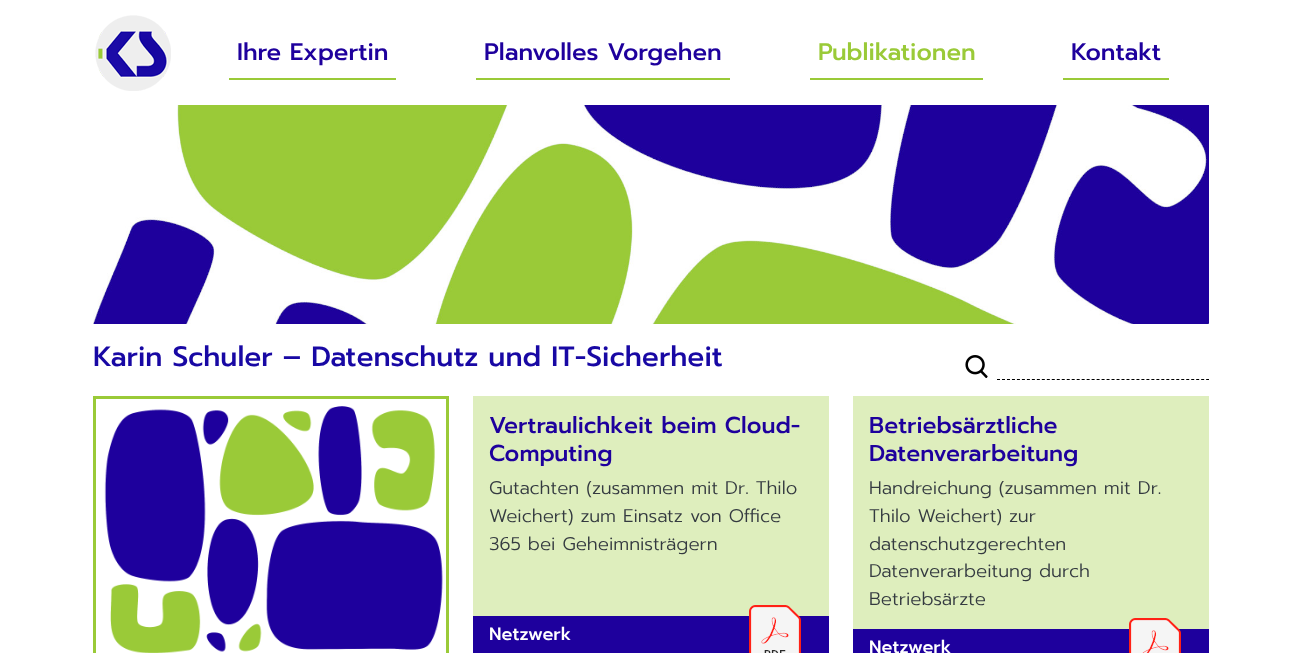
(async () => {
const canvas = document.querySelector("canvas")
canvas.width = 1302
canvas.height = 653
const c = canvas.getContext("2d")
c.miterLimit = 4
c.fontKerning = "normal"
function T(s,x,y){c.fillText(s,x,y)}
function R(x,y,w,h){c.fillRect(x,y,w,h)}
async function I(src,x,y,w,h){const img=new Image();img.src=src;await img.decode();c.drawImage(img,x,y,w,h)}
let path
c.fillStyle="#fff"
R(0,0,1302,653)
await I("1.png",95,15,76,76)
c.fillStyle="#9aca38"
R(229,78,167,2)
c.font="500 24px Prompt"
c.fillStyle="#1e009d"
T("Ihre Expertin",237,60)
c.fillStyle="#9aca38"
R(476,78,254,2)
c.fillStyle="#1e009d"
T("Planvolles Vorgehen",484,60)
c.fillStyle="#9aca38"
R(810,78,173,2)
T("Publikationen",818,60)
R(1063,78,106,2)
c.fillStyle="#1e009d"
T("Kontakt",1071,60)
await I("2.png",93,105,1116,219)
c.font="500 28px Prompt"
c.fillStyle="#1808a4"
T("Karin Schuler – Datenschutz und IT-Sicherheit",93,366)
await I("3.png",965,355,23,23)
path = new Path2D("M997 379.5h212")
c.strokeStyle="#000"
c.setLineDash([3,1.98])
c.stroke(path)
c.strokeStyle="#9aca38"
c.lineWidth=3
c.setLineDash([])
c.strokeRect(94.5,397.5,353,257)
await I("4.png",104,406,339,247)
c.fillStyle="#deeebd"
R(473,396,356,220)
c.font="500 23px Prompt"
c.fillStyle="#1e009d"
T("Vertraulichkeit beim Cloud-",489,433)
T("Computing",489,461)
c.font="300 18.4px Prompt"
c.fillStyle="#343a40"
T("Gutachten (zusammen mit Dr. Thilo",489,494)
T("Weichert) zum Einsatz von Office",489,522)
T("365 bei Geheimnisträgern",489,550)
c.fillStyle="#1e009d"
R(473,616,356,37)
c.font="500 18px Prompt"
c.fillStyle="#fff"
T("Netzwerk",489,640)
await I("5.png",749,605,52,48)
c.fillStyle="#deeebd"
R(853,396,356,233)
c.font="500 23px Prompt"
c.fillStyle="#1e009d"
T("Betriebsärztliche",869,433)
T("Datenverarbeitung",869,461)
c.font="300 18.4px Prompt"
c.fillStyle="#343a40"
T("Handreichung (zusammen mit Dr.",869,494)
T("Thilo Weichert) zur",869,522)
T("datenschutzgerechten",869,550)
T("Datenverarbeitung durch",869,577)
T("Betriebsärzte",869,605)
c.fillStyle="#1e009d"
R(853,629,356,24)
c.font="500 18px Prompt"
c.fillStyle="#fff"
T("Netzwerk",869,653)
await I("6.png",1129,618,52,35)
})()
